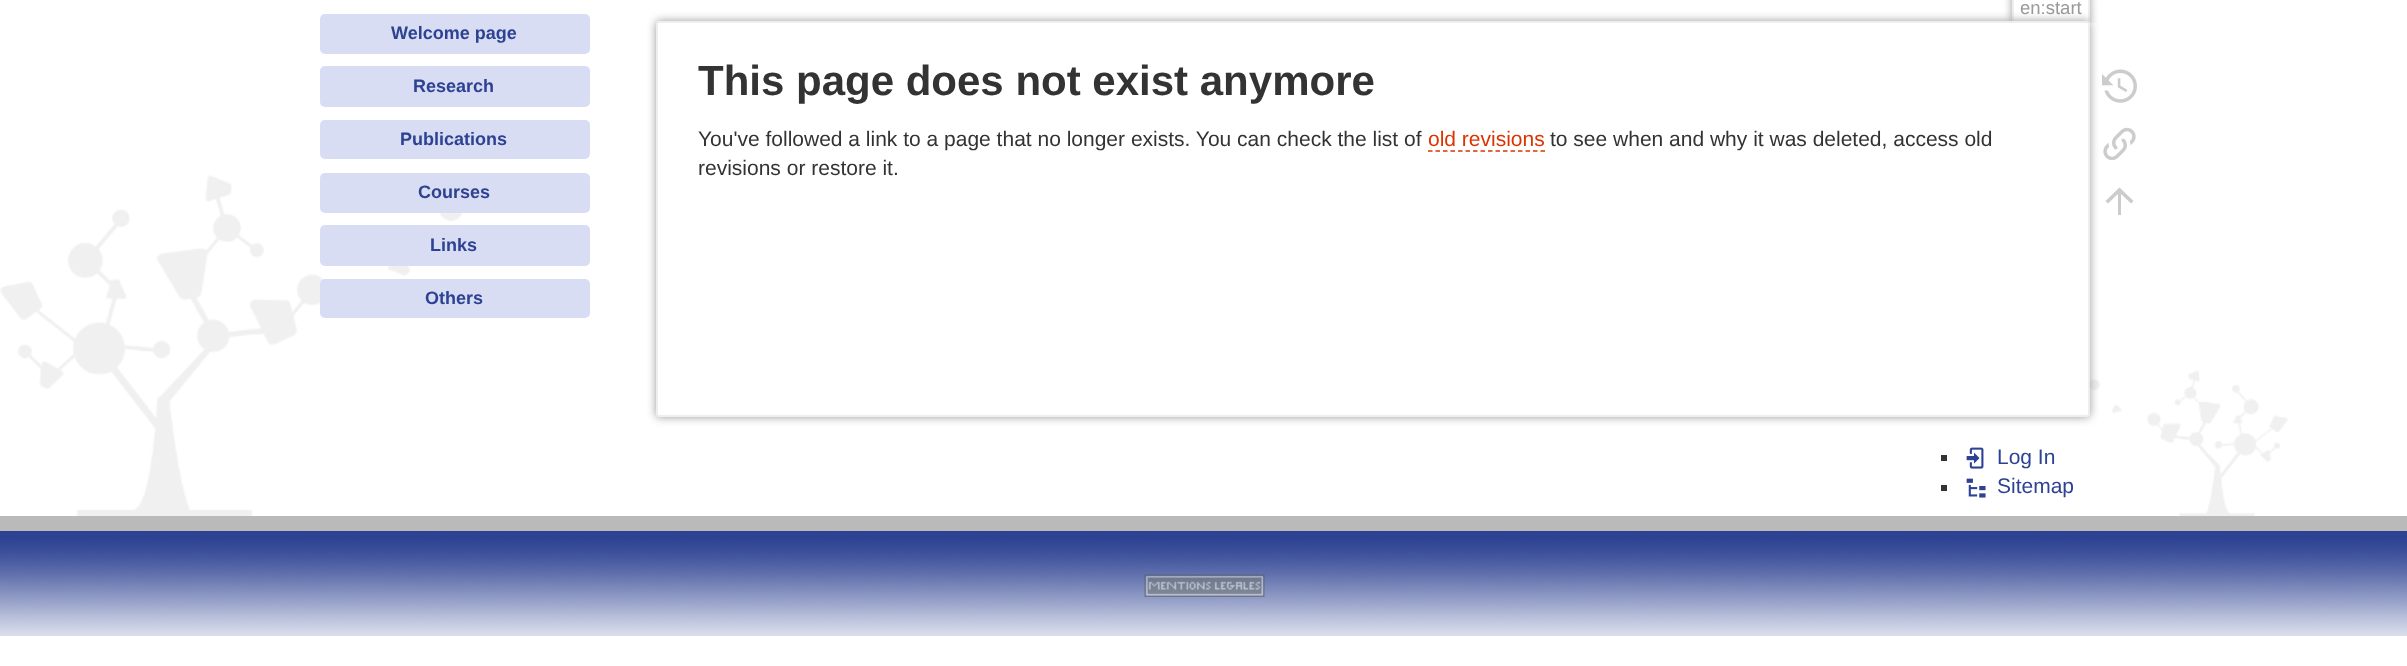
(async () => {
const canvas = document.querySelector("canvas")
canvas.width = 2407
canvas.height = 666
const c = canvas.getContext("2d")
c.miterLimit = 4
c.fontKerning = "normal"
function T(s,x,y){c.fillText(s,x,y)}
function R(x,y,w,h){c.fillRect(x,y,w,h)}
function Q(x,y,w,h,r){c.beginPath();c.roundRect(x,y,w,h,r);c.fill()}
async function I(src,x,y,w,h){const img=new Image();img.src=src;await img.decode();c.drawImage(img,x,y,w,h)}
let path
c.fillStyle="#fff"
R(0,0,2407,666)
c.fillStyle="#d8ddf3"
Q(320,14,270,40,5)
c.font="bold 18px Liberation Sans"
c.fillStyle="#2d4292"
T("Welcome page",391,39)
c.fillStyle="#d8ddf3"
Q(320,66,270,41,5)
c.fillStyle="#2d4292"
T("Research",413,92)
c.fillStyle="#d8ddf3"
Q(320,120,270,39,5)
c.fillStyle="#2d4292"
T("Publications",400,145)
await I("5.png",0,175,463,341)
c.fillStyle="#d8ddf3"
Q(320,173,270,40,5)
c.fillStyle="#2d4292"
T("Courses",418,198)
c.fillStyle="#d8ddf3"
Q(320,225,270,41,5)
c.fillStyle="#2d4292"
T("Links",430,251)
c.fillStyle="#d8ddf3"
Q(320,279,270,39,5)
c.fillStyle="#2d4292"
T("Others",425,304)
c.save()
c.beginPath()
c.rect(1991,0,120,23)
c.clip()
c.fillStyle="#999"
c.filter="blur(4.5px)"
c.beginPath()
c.roundRect(2012,-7,78,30,3)
c.fill()
c.filter="none"
c.restore()
c.fillStyle="#fff"
R(2014,0,74,22)
c.fillStyle="#eee"
R(2088,0,2,23)
R(2012,0,2,23)
c.font="18.5px Liberation Sans"
c.fillStyle="#999"
T("en:start",2020,14)
await I("6.png",2090,370,198,146)
c.filter="blur(5px)"
c.beginPath()
c.roundRect(656,21,1434,396,3)
c.fill()
c.filter="none"
c.fillStyle="#fff"
c.beginPath()
c.roundRect(657,22,1432,394,2)
c.fill()
c.strokeStyle="#eee"
c.lineWidth=2
c.stroke()
c.font="bold 42px Liberation Sans"
c.fillStyle="#333"
T("This page does not exist anymore",698,95)
c.font="21px Liberation Sans"
T("You've followed a link to a page that no longer exists. You can check the list of",698,146)
c.fillStyle="#d30"
T("old revisions",1428,146)
path = new Path2D("M1428 151h117")
c.strokeStyle="#d30"
c.lineWidth=1.5
c.setLineDash([4.5,3])
c.stroke(path)
c.fillStyle="#333"
T("to see when and why it was deleted, access old",1550,146)
T("revisions or restore it.",698,175)
await I("1.png",2102,69,35,34)
await I("2.png",2103,127,33,34)
c.fillStyle="#ccc"
path = new Path2D("M2121 215h-3v-21l-10 9.5l-2.5-2.5l14-13.5l14 13.5l-2.5 2.5l-10-9.5z")
c.fill(path)
c.fillStyle="#333"
R(1941,455,6,6)
await I("3.png",1966,447,18,22)
c.fillStyle="#2d4292"
T("Log In",1997,464)
c.fillStyle="#333"
R(1941,485,6,6)
await I("4.png",1966,478,20,20)
c.fillStyle="#2d4292"
T("Sitemap",1997,493)
c.fillStyle="#bababa"
R(0,516,2407,15)
await I("7.png",0,531,2407,105)
await I("8.png",1144,574,121,23)
})()
